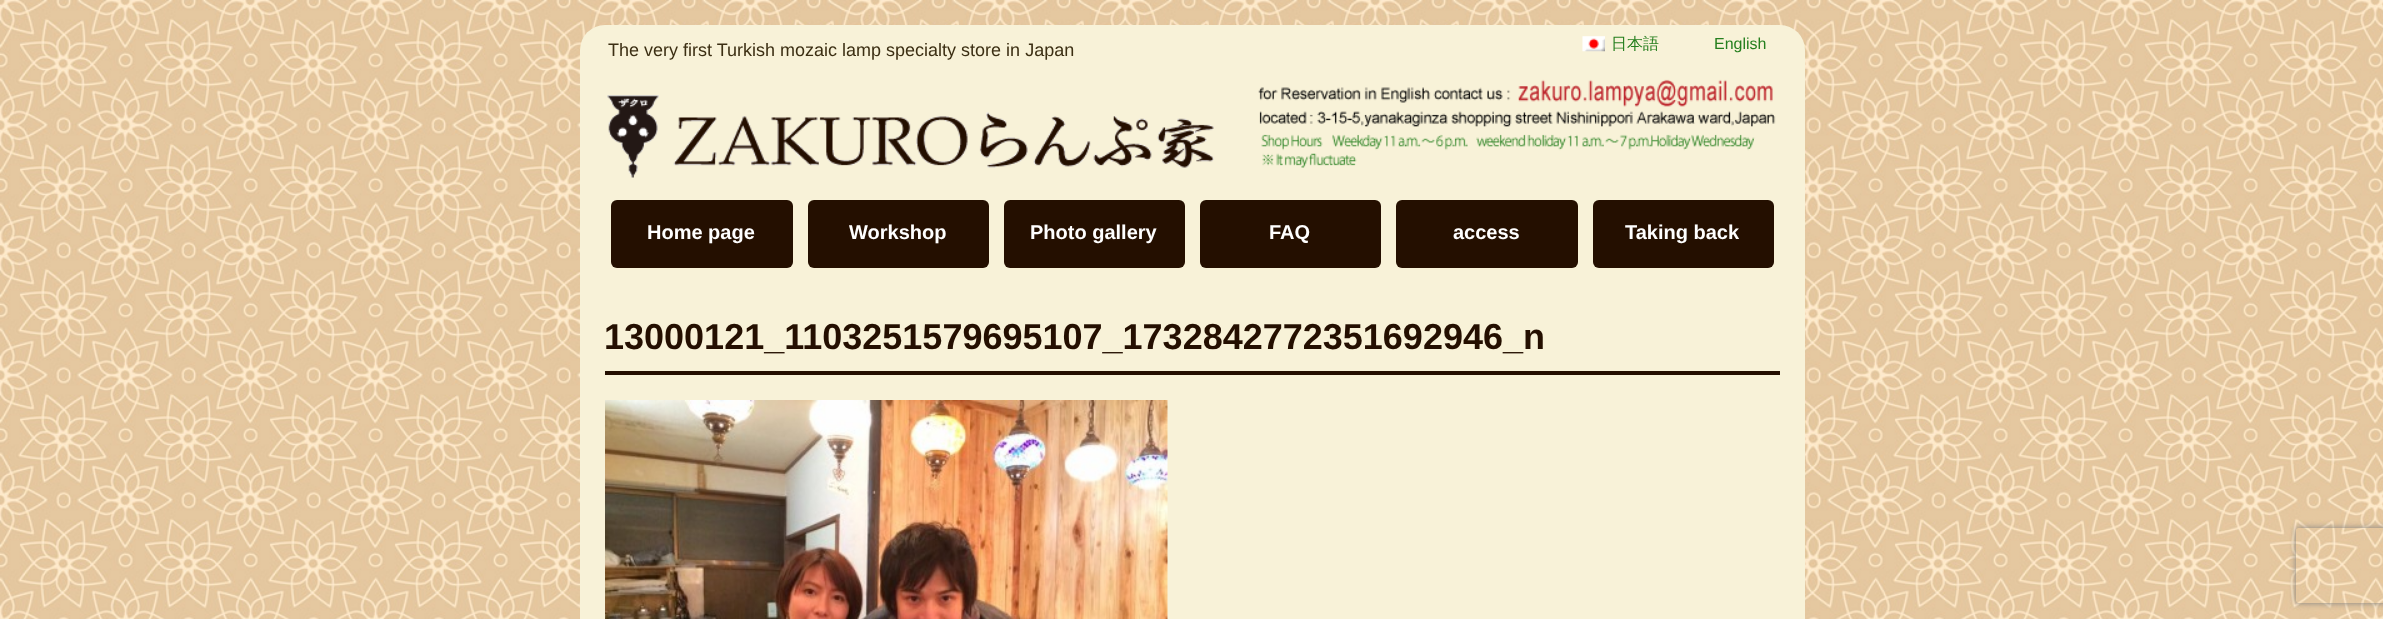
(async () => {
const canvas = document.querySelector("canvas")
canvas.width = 2383
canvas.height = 619
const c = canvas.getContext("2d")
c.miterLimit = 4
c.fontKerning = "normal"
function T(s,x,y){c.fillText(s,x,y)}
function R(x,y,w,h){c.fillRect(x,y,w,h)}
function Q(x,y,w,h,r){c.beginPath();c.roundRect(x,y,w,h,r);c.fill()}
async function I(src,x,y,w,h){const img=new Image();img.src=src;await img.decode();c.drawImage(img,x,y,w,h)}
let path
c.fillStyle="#fff"
R(0,0,2383,619)
await I("1.png",0,0,2383,619)
c.fillStyle="#f8f2d8"
Q(580,25,1225,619,25)
c.font="18px Liberation Sans"
c.fillStyle="#3c2f13"
T("The very first Turkish mozaic lamp specialty store in Japan",608,56)
await I("2.png",1582,36,23,16)
c.font="500 16px WenQuanYi Zen Hei"
c.fillStyle="#257f1e"
T("日本語",1611,49)
c.font="16px Liberation Sans"
T("English",1714,49)
await I("3.png",607,95,607,83)
await I("4.png",1258,79,518,89)
c.fillStyle="#240f00"
Q(611,200,182,68,6)
c.font="bold 20px Liberation Sans"
c.fillStyle="#fff"
T("Home page",647,239)
c.fillStyle="#240f00"
Q(808,200,181,68,6)
c.fillStyle="#fff"
T("Workshop",849,239)
c.fillStyle="#240f00"
Q(1004,200,181,68,6)
c.fillStyle="#fff"
T("Photo gallery",1030,239)
c.fillStyle="#240f00"
Q(1200,200,181,68,6)
c.fillStyle="#fff"
T("FAQ",1269,239)
c.fillStyle="#240f00"
Q(1396,200,182,68,6)
c.fillStyle="#fff"
T("access",1453,239)
c.fillStyle="#240f00"
Q(1593,200,181,68,6)
c.fillStyle="#fff"
T("Taking back",1625,239)
c.fillStyle="#240f00"
R(605,371,1175,4)
c.font="bold 36px Liberation Sans"
T("13000121_1103251579695107_1732842772351692946_n",604,349)
await I("5.png",605,400,563,219)
c.save()
path = new Path2D("M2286 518h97v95h-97zm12.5 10h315c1.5 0 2.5 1 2.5 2.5v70c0 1.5-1 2.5-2.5 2.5h-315c-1.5 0-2.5-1-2.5-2.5v-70c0-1.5 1-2.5 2.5-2.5z")
c.clip(path,"evenodd")
c.fillStyle="#808080"
c.filter="blur(3px)"
c.beginPath()
c.roundRect(2296,528,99,75,2.5)
c.fill()
c.filter="none"
c.restore()
})()
